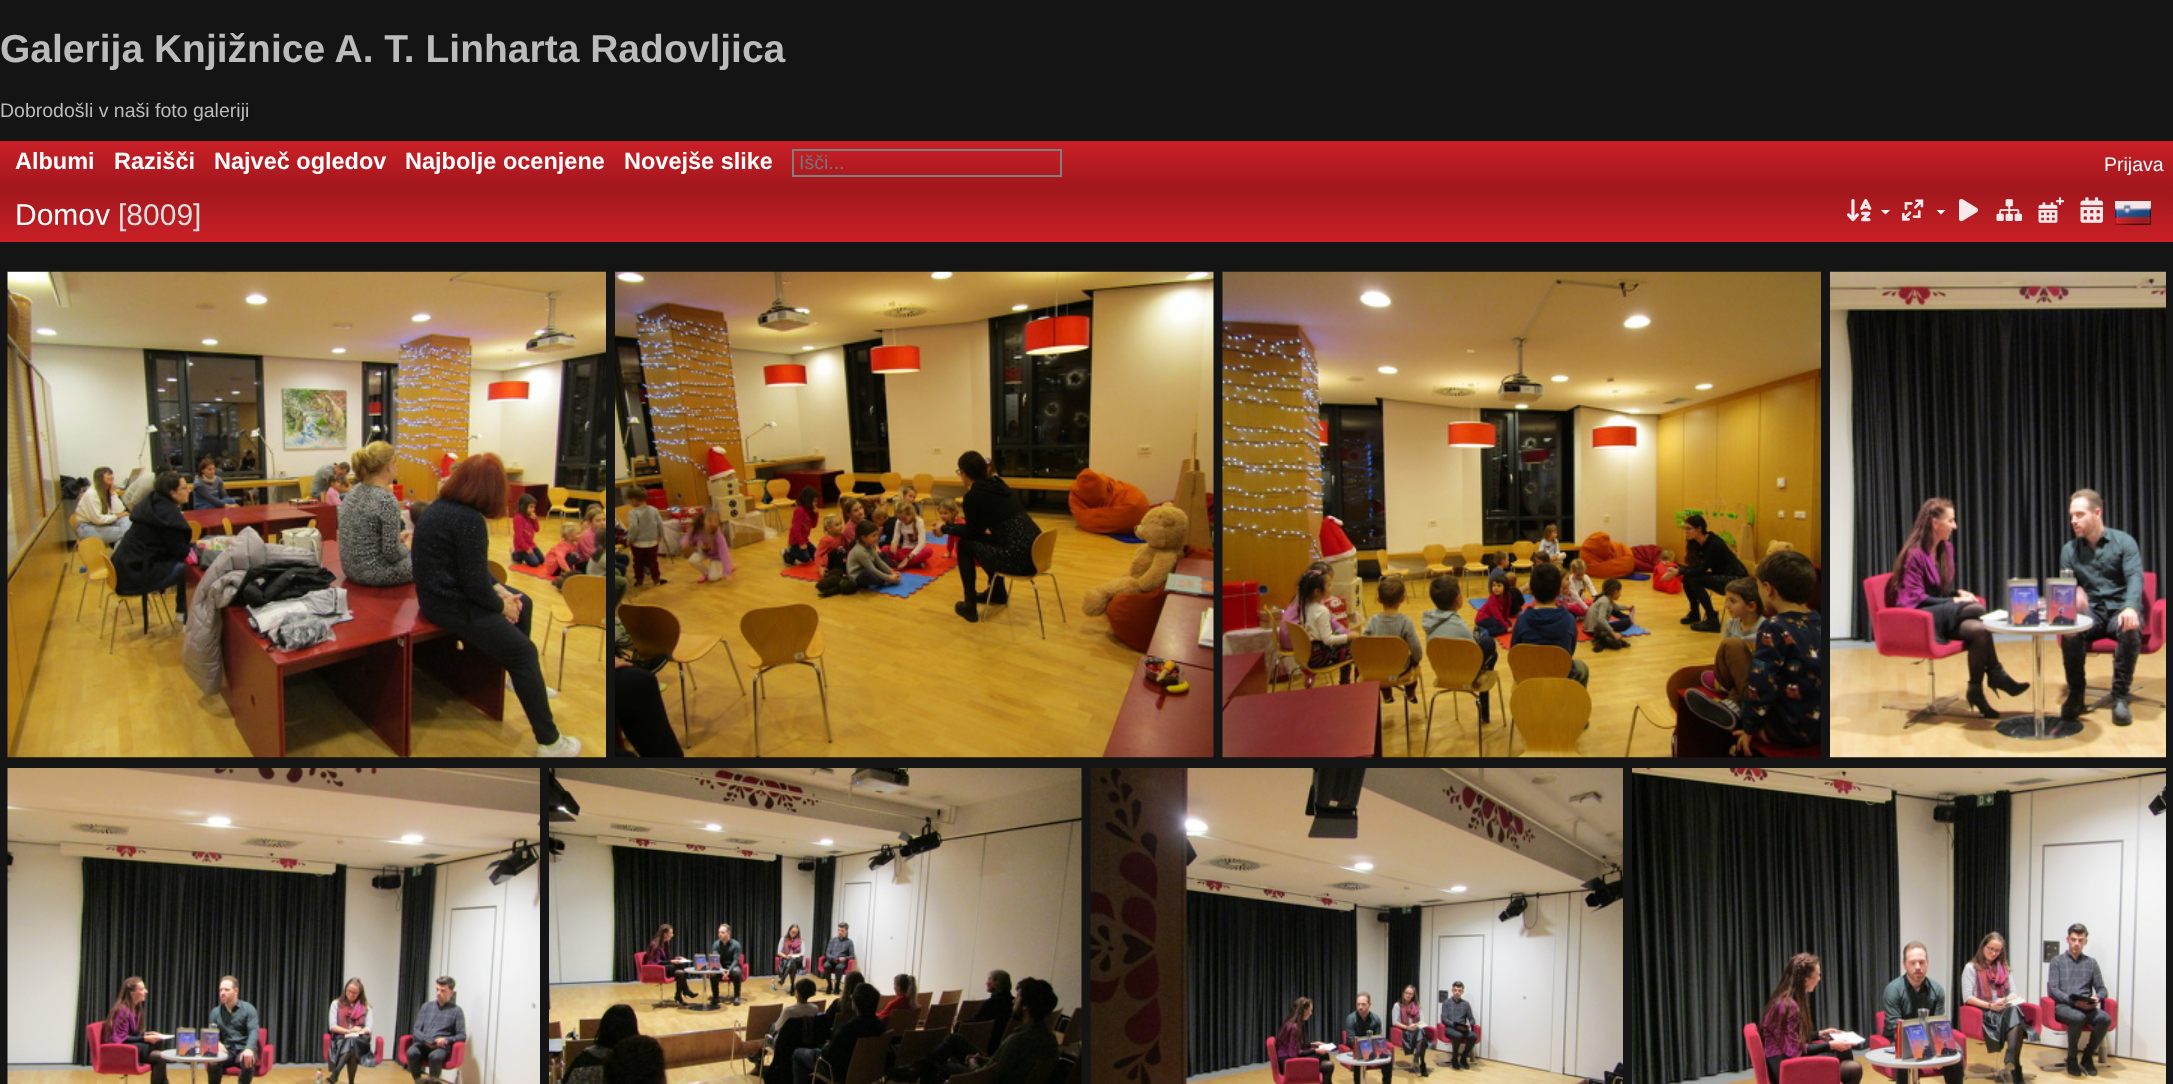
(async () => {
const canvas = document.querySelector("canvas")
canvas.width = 2173
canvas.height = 1084
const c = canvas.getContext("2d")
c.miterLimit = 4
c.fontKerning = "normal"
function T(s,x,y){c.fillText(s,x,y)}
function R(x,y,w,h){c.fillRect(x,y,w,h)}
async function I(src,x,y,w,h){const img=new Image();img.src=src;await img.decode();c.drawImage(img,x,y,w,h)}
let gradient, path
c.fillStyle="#141414"
R(0,0,2173,1084)
c.font="bold 39px Liberation Sans"
c.fillStyle="#bbb"
T("Galerija Knjižnice A. T. Linharta Radovljica",0,62)
c.font="19.5px Liberation Sans"
T("Dobrodošli v naši foto galeriji",0,117)
gradient = c.createLinearGradient(1087,141,1087,189)
gradient.addColorStop(0,"#cb2027")
gradient.addColorStop(1,"#a0171c")
c.fillStyle = gradient
R(0,141,2173,48)
c.font="bold 23.5px Liberation Sans"
c.fillStyle="#fff"
T("Albumi",15,169)
T("Razišči",114,169)
T("Največ ogledov",214,169)
T("Najbolje ocenjene",405,169)
T("Novejše slike",624,169)
c.strokeStyle="#808080"
c.lineWidth=2
c.strokeRect(793,150,268,26)
c.font="19.5px Liberation Sans"
c.fillStyle="#757575"
T("Išči...",799,169)
c.fillStyle="#fff"
T("Prijava",2104,171)
gradient = c.createLinearGradient(1087,189,1087,242)
gradient.addColorStop(0,"#a0171c")
gradient.addColorStop(1,"#cb2027")
c.fillStyle = gradient
R(0,189,2173,53)
c.font="30px Liberation Sans"
c.fillStyle="#fff"
T("Domov",15,225)
c.fillStyle="#ddd"
T("[8009]",118,225)
await I("1.png",1847,198,25,24)
c.fillStyle="#fff"
path = new Path2D("M1881 210h9l-4.5 4.5z")
c.fill(path)
await I("2.png",1902,199,22,22)
path = new Path2D("M1936.5 210h9l-4.5 4.5z")
c.fill(path)
await I("3.png",1959,198,20,24)
await I("4.png",1996,199,26,22)
await I("5.png",2038,197,26,26)
await I("6.png",2080,197,23,26)
await I("7.png",2115,201,36,24)
await I("8.png",7,271,599,487)
await I("9.png",615,271,599,487)
await I("10.png",1222,271,599,487)
await I("11.png",1830,271,336,487)
await I("12.png",7,768,533,316)
await I("13.png",549,768,533,316)
await I("14.png",1090,768,533,316)
await I("15.png",1632,768,534,316)
})()
